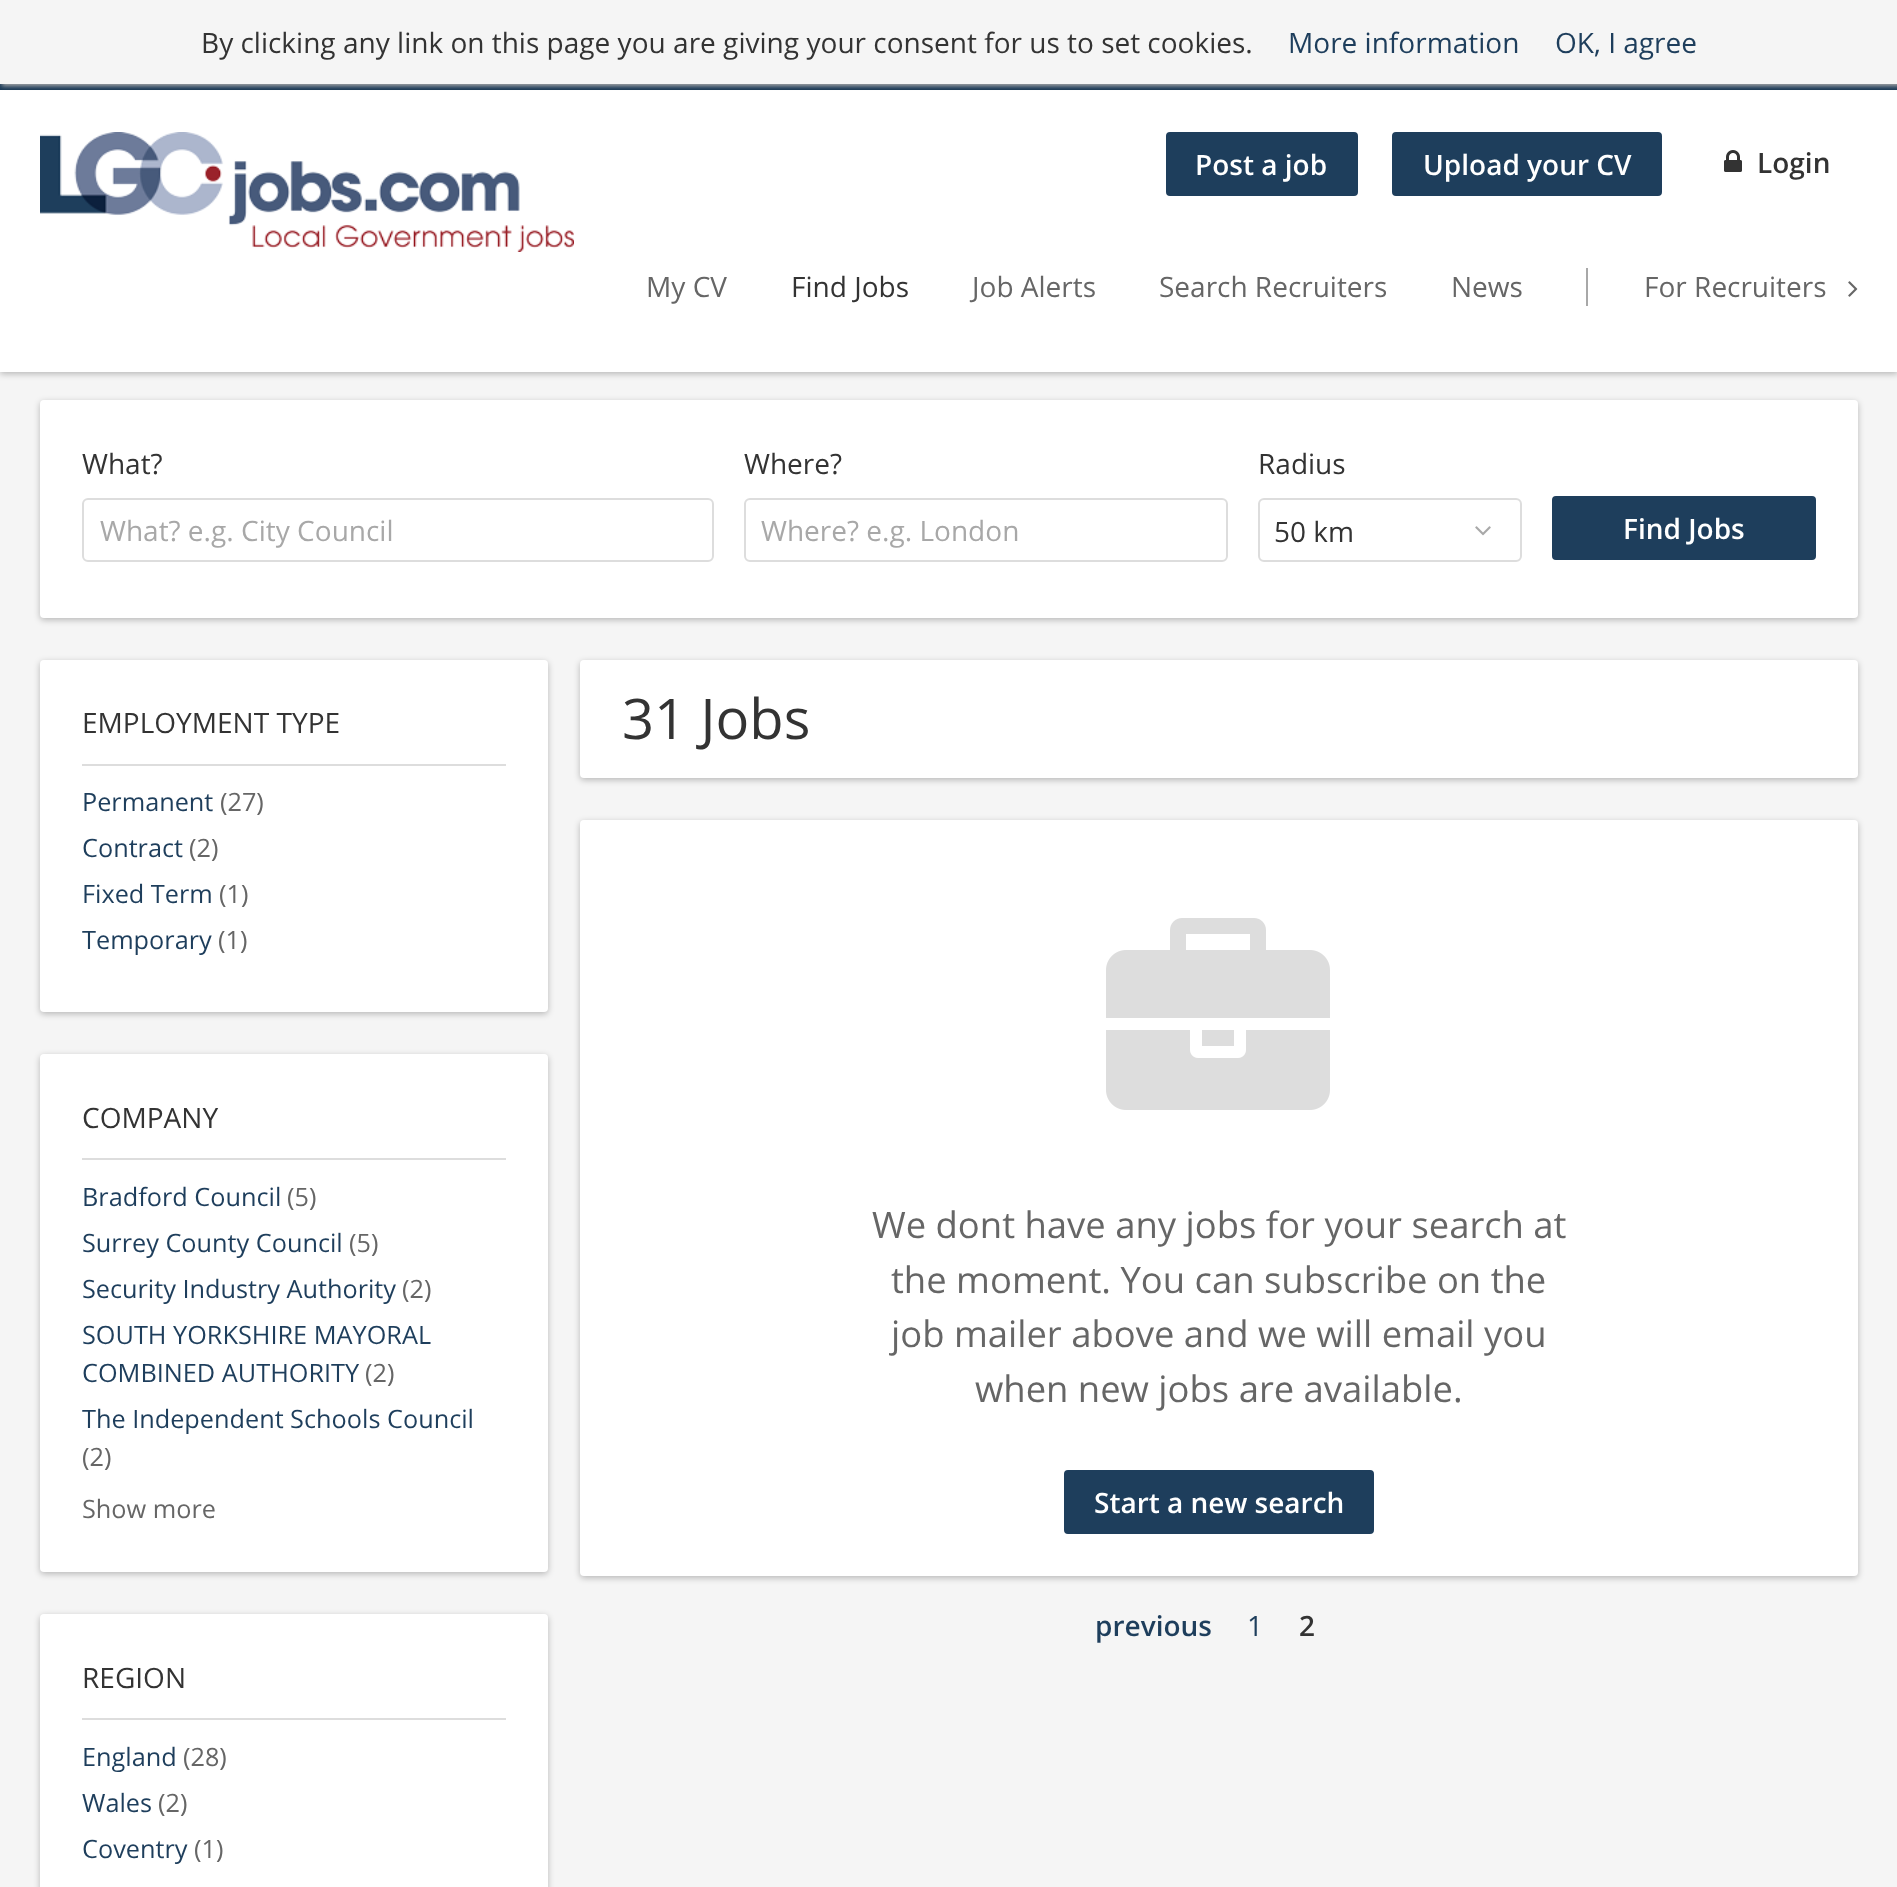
(async () => {
const canvas = document.querySelector("canvas")
canvas.width = 1897
canvas.height = 1887
const c = canvas.getContext("2d")
c.miterLimit = 4
c.fontKerning = "normal"
function T(s,x,y){c.fillText(s,x,y)}
function R(x,y,w,h){c.fillRect(x,y,w,h)}
function Q(x,y,w,h,r){c.beginPath();c.roundRect(x,y,w,h,r);c.fill()}
async function I(src,x,y,w,h){const img=new Image();img.src=src;await img.decode();c.drawImage(img,x,y,w,h)}
c.fillStyle="#f5f5f5"
R(0,0,1897,1887)
c.fillStyle="#1e3e5c"
R(0,84,1897,6)
c.fillStyle="#00000040"
c.filter="blur(3px)"
c.beginPath()
c.rect(0,92,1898,282)
c.fill()
c.filter="none"
c.fillStyle="#fff"
R(0,90,1897,282)
c.fillStyle="#a8a8a8"
c.filter="blur(2px)"
c.beginPath()
c.rect(2,2,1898,84)
c.fill()
c.filter="none"
c.fillStyle="#f5f5f5"
R(0,0,1897,84)
c.font="28px Open Sans"
c.fillStyle="#333"
T("By clicking any link on this page you are giving your consent for us to set cookies.",201,53)
c.fillStyle="#1e3e5c"
T("More information",1288,53)
T("OK, I agree",1555,53)
await I("1.png",40,132,534,120)
c.beginPath()
c.roundRect(1167,133,190,62,3)
c.fill()
c.strokeStyle="#1e3e5c"
c.lineWidth=2
c.stroke()
c.font="600 28px Open Sans"
c.fillStyle="#fff"
T("Post a job",1195,175)
c.fillStyle="#1e3e5c"
c.beginPath()
c.roundRect(1393,133,268,62,3)
c.fill()
c.stroke()
c.fillStyle="#fff"
T("Upload your CV",1423,175)
await I("2.png",1724,150,18,22)
c.fillStyle="#333"
T("Login",1757,173)
c.font="28px Open Sans"
c.fillStyle="#666"
T("My CV",646,297)
c.fillStyle="#333"
T("Find Jobs",791,297)
c.fillStyle="#666"
T("Job Alerts",972,297)
T("Search Recruiters",1159,297)
T("News",1451,297)
c.fillStyle="#a8a8a8"
R(1586,268,2,38)
c.fillStyle="#666"
T("For Recruiters",1644,297)
await I("3.png",1848,281,10,16)
c.fillStyle="#00000040"
c.filter="blur(3px)"
c.beginPath()
c.roundRect(40,402,1818,218,4)
c.fill()
c.filter="none"
c.fillStyle="#fff"
Q(40,400,1818,218,4)
c.fillStyle="#333"
T("What?",82,474)
c.beginPath()
c.roundRect(83,499,630,62,5)
c.strokeStyle="#ddd"
c.stroke()
c.fillStyle="#a8a8a8"
T("What? e.g. City Council",100,541)
c.fillStyle="#333"
T("Where?",744,474)
c.beginPath()
c.roundRect(745,499,482,62,5)
c.stroke()
c.fillStyle="#a8a8a8"
T("Where? e.g. London",761,541)
c.fillStyle="#333"
T("Radius",1258,474)
c.beginPath()
c.roundRect(1259,499,262,62,5)
c.stroke()
T("50 km",1274,542)
await I("4.png",1475,526,16,10)
c.fillStyle="#1e3e5c"
c.beginPath()
c.roundRect(1553,497,262,62,3)
c.fill()
c.strokeStyle="#1e3e5c"
c.stroke()
c.font="600 28px Open Sans"
c.fillStyle="#fff"
T("Find Jobs",1623,539)
c.fillStyle="#00000040"
c.filter="blur(3px)"
c.beginPath()
c.roundRect(40,662,508,352,4)
c.fill()
c.filter="none"
c.fillStyle="#fff"
Q(40,660,508,352,4)
c.fillStyle="#ddd"
R(82,764,424,2)
c.font="28px Open Sans"
c.fillStyle="#333"
T("EMPLOYMENT TYPE",82,733)
c.font="25.25px Open Sans"
c.fillStyle="#1e3e5c"
T("Permanent",82,811)
c.fillStyle="#666"
T("(27)",220,811)
c.fillStyle="#1e3e5c"
T("Contract",82,857)
c.fillStyle="#666"
T("(2)",189,857)
c.fillStyle="#1e3e5c"
T("Fixed Term",82,903)
c.fillStyle="#666"
T("(1)",219,903)
c.fillStyle="#1e3e5c"
T("Temporary",82,949)
c.fillStyle="#666"
T("(1)",218,949)
c.fillStyle="#00000040"
c.filter="blur(3px)"
c.beginPath()
c.roundRect(40,1056,508,518,4)
c.fill()
c.filter="none"
c.fillStyle="#fff"
Q(40,1054,508,518,4)
c.fillStyle="#ddd"
R(82,1158,424,2)
c.font="28px Open Sans"
c.fillStyle="#333"
T("COMPANY",82,1128)
c.font="25.25px Open Sans"
c.fillStyle="#1e3e5c"
T("Bradford Council",82,1206)
c.fillStyle="#666"
T("(5)",287,1206)
c.fillStyle="#1e3e5c"
T("Surrey County Council",82,1252)
c.fillStyle="#666"
T("(5)",349,1252)
c.fillStyle="#1e3e5c"
T("Security Industry Authority",82,1298)
c.fillStyle="#666"
T("(2)",402,1298)
c.fillStyle="#1e3e5c"
T("SOUTH YORKSHIRE MAYORAL",82,1344)
T("COMBINED AUTHORITY",82,1382)
c.fillStyle="#666"
T("(2)",365,1382)
c.fillStyle="#1e3e5c"
T("The Independent Schools Council",82,1428)
c.fillStyle="#666"
T("(2)",82,1466)
T("Show more",82,1518)
c.fillStyle="#00000040"
c.filter="blur(3px)"
c.beginPath()
c.roundRect(40,1616,508,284,4)
c.fill()
c.filter="none"
c.fillStyle="#fff"
Q(40,1614,508,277,4)
c.fillStyle="#ddd"
R(82,1718,424,2)
c.font="28px Open Sans"
c.fillStyle="#333"
T("REGION",82,1688)
c.font="25.25px Open Sans"
c.fillStyle="#1e3e5c"
T("England",82,1766)
c.fillStyle="#666"
T("(28)",183,1766)
c.fillStyle="#1e3e5c"
T("Wales",82,1812)
c.fillStyle="#666"
T("(2)",158,1812)
c.fillStyle="#1e3e5c"
T("Coventry",82,1858)
c.fillStyle="#666"
T("(1)",194,1858)
c.fillStyle="#00000040"
c.filter="blur(3px)"
c.beginPath()
c.roundRect(580,662,1278,118,4)
c.fill()
c.filter="none"
c.fillStyle="#fff"
Q(580,660,1278,118,4)
c.font="56px Open Sans"
c.fillStyle="#333"
T("31 Jobs",622,739)
c.fillStyle="#00000040"
c.filter="blur(3px)"
c.beginPath()
c.roundRect(580,822,1278,756,4)
c.fill()
c.filter="none"
c.fillStyle="#fff"
Q(580,820,1278,756,4)
await I("5.png",1106,918,224,192)
c.font="36.4px Open Sans"
c.fillStyle="#666"
T("We dont have any jobs for your search at",872,1238)
T("the moment. You can subscribe on the",891,1293)
T("job mailer above and we will email you",891,1347)
T("when new jobs are available.",975,1402)
c.fillStyle="#1e3e5c"
c.beginPath()
c.roundRect(1065,1471,308,62,3)
c.fill()
c.stroke()
c.font="600 28px Open Sans"
c.fillStyle="#fff"
T("Start a new search",1094,1513)
c.fillStyle="#1e3e5c"
T("previous",1095,1636)
c.font="28px Open Sans"
T("1",1247,1636)
c.font="600 28px Open Sans"
c.fillStyle="#333"
T("2",1299,1636)
})()
